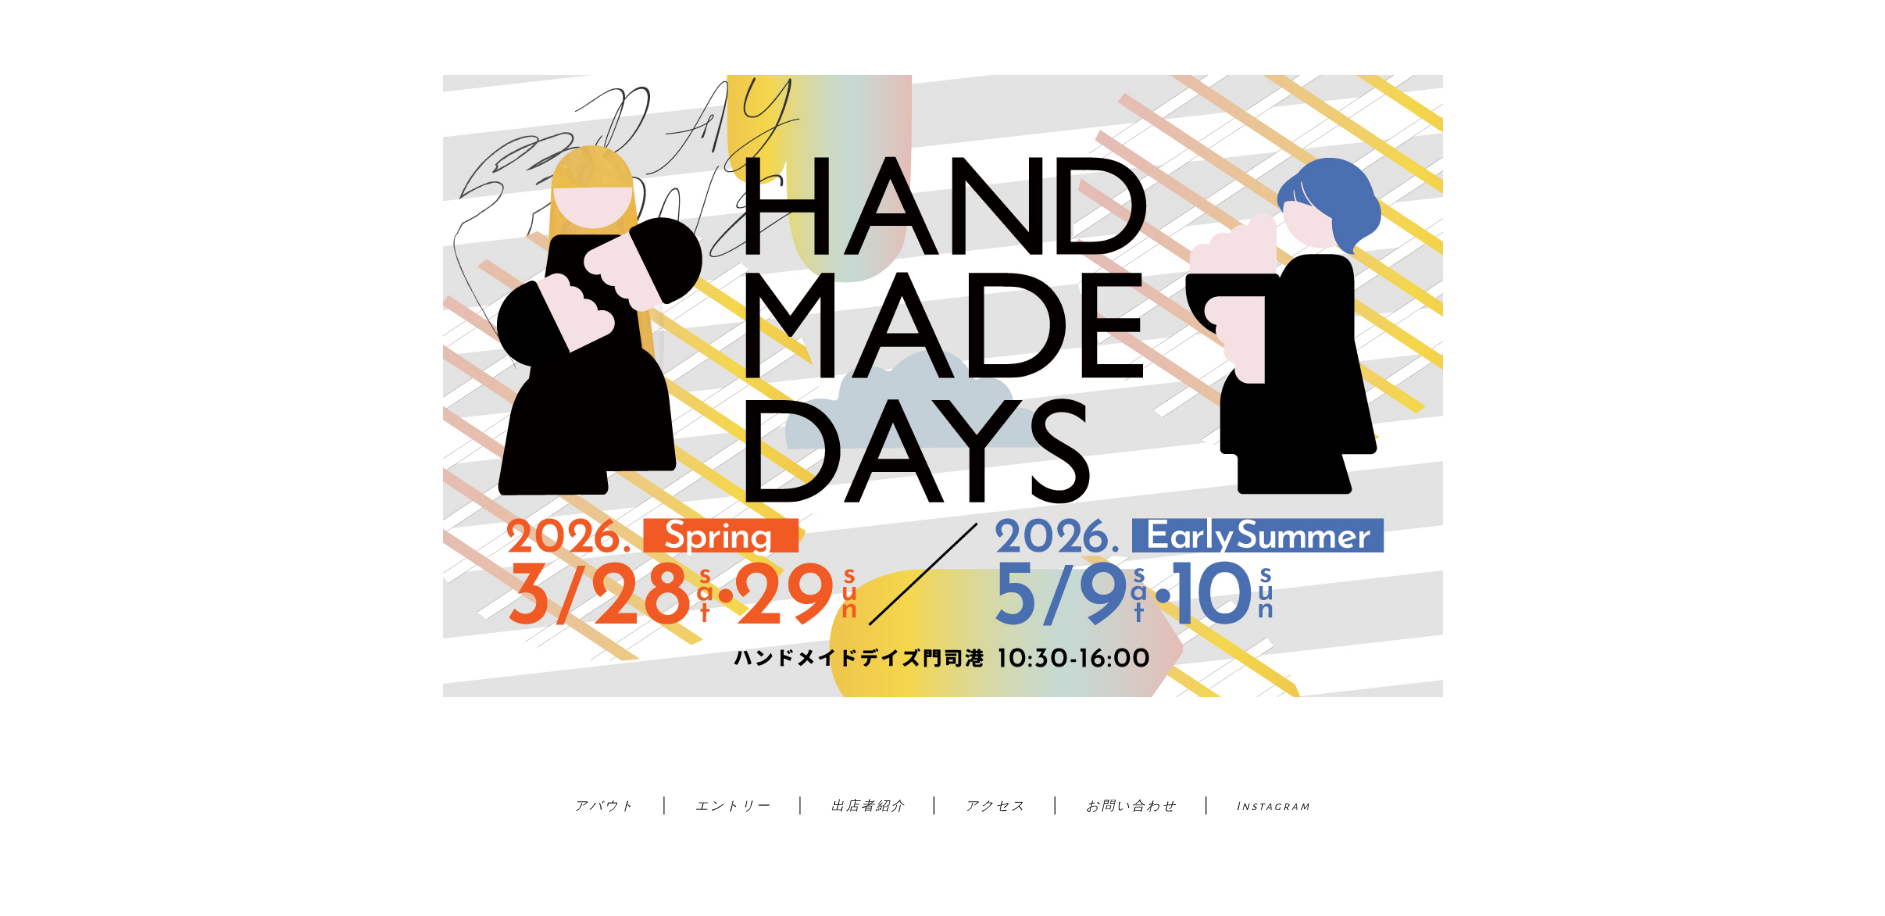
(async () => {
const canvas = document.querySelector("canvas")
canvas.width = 1885
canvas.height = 916
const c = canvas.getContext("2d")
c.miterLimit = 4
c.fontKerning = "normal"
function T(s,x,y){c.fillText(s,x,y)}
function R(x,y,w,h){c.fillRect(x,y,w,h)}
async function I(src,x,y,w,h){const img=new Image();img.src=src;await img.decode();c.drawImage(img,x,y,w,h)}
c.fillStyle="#fff"
R(0,0,1885,916)
await I("1.png",443,75,1000,622)
c.letterSpacing="2px"
c.font="italic 500 13px WenQuanYi Zen Hei"
c.fillStyle="#303030"
T("アバウト",574,810)
c.font="500 18px WenQuanYi Zen Hei"
T("｜",655,810)
c.font="italic 500 13px WenQuanYi Zen Hei"
T("エントリー",695,810)
c.font="500 18px WenQuanYi Zen Hei"
T("｜",791,810)
c.font="italic 500 13px WenQuanYi Zen Hei"
T("出店者紹介",831,810)
c.font="500 18px WenQuanYi Zen Hei"
T("｜",925,810)
c.font="italic 500 13px WenQuanYi Zen Hei"
T("アクセス",965,810)
c.font="500 18px WenQuanYi Zen Hei"
T("｜",1046,810)
c.font="italic 500 13px WenQuanYi Zen Hei"
T("お問い合わせ",1086,810)
c.font="500 18px WenQuanYi Zen Hei"
T("｜",1197,810)
c.font="italic 13px Alegreya Sans SC"
T("Instagram",1236,810)
})()
